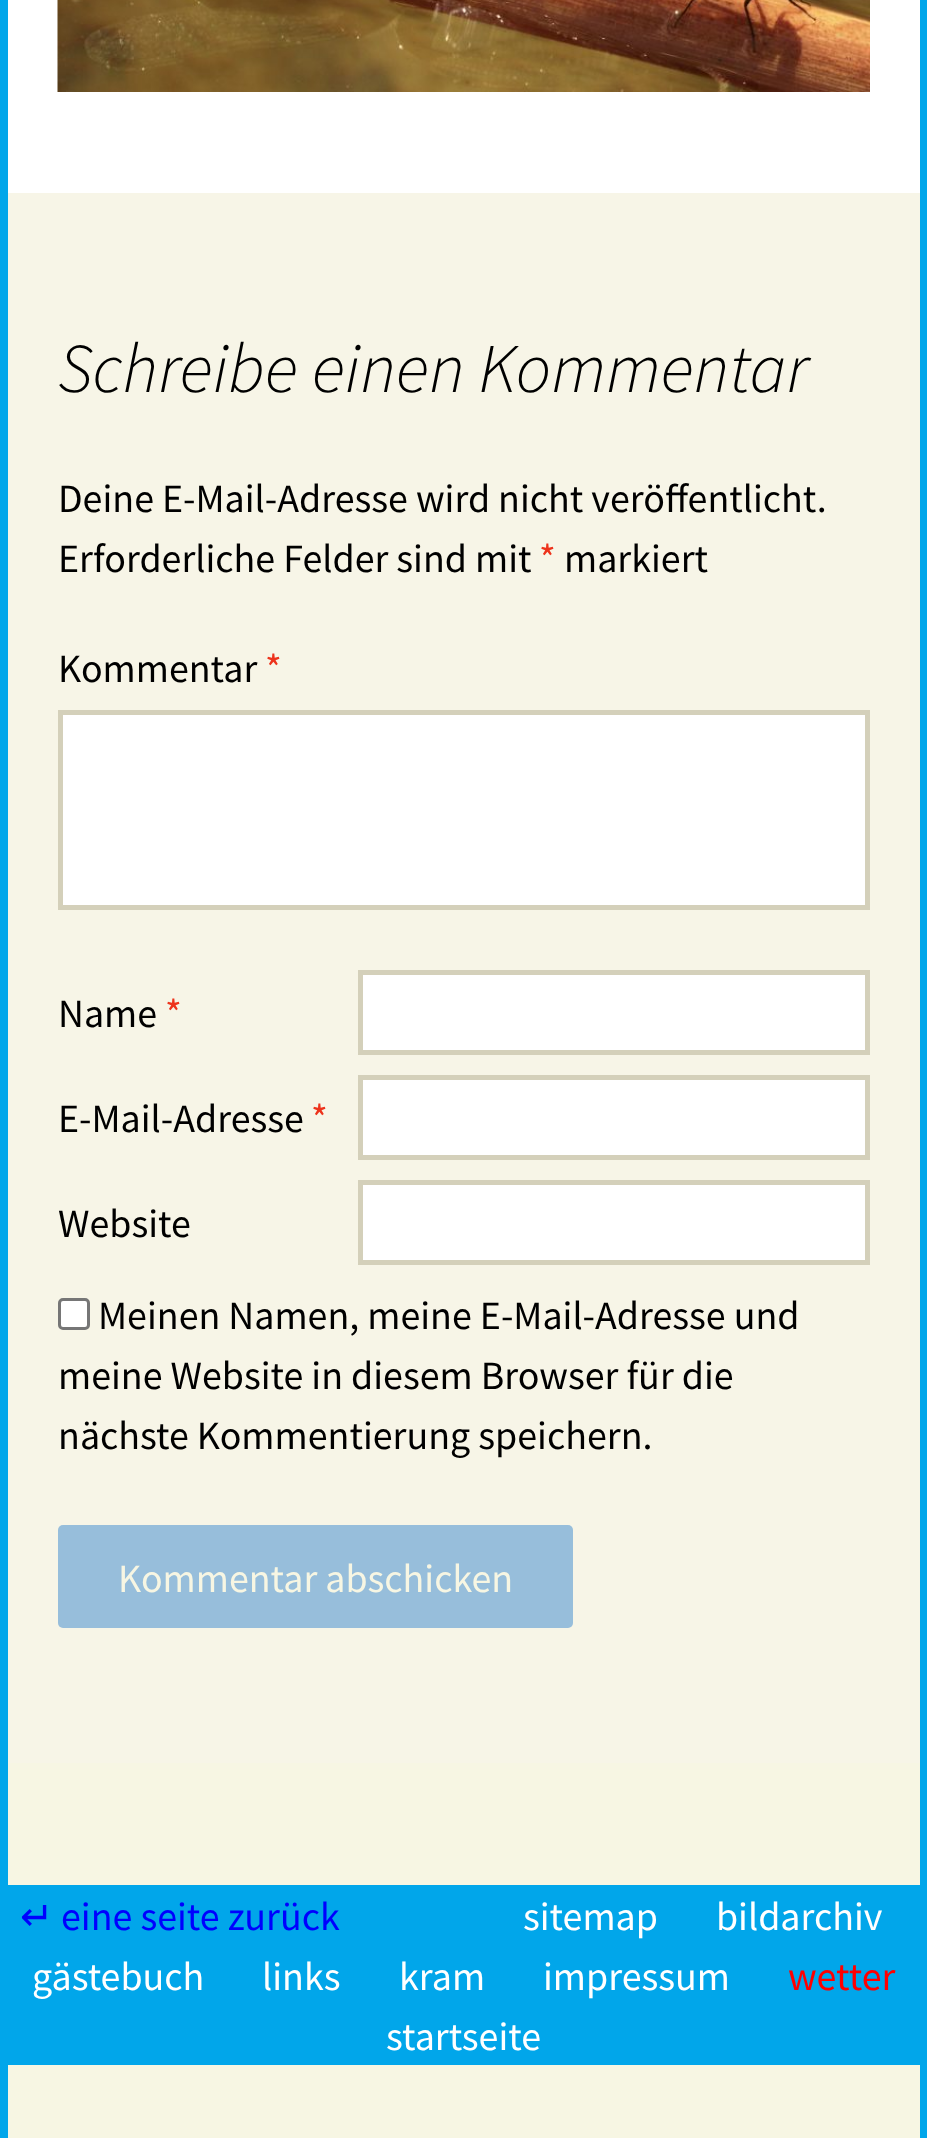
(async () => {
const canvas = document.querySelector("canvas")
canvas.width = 927
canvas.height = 2138
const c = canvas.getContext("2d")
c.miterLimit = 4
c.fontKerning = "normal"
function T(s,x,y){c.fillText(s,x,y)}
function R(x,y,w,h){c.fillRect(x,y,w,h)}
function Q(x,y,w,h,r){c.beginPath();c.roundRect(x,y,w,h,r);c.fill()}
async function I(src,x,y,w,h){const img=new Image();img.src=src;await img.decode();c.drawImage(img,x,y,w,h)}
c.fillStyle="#f7f6e3"
R(0,0,927,2138)
c.fillStyle="#01a6ea"
R(920,0,7,2138)
R(0,0,8,2138)
c.fillStyle="#fff"
R(8,0,912,193)
await I("1.png",57,0,813,92)
c.fillStyle="#f7f5e7"
R(8,193,912,1570)
c.font="italic 300 70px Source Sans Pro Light"
c.fillStyle="#000"
T("Schreibe einen Kommentar",58,392)
c.font="40px Source Sans Pro"
T("Deine E-Mail-Adresse wird nicht veröffentlicht.",58,512)
T("Erforderliche Felder sind mit",58,572)
c.fillStyle="#ed331c"
T("*",539,572)
c.fillStyle="#000"
T("markiert",564,572)
T("Kommentar",58,682)
c.fillStyle="#ed331c"
T("*",265,682)
c.fillStyle="#fff"
c.beginPath()
c.rect(60.5,712.5,807,195)
c.fill()
c.strokeStyle="#d4d0ba"
c.lineWidth=5
c.stroke()
c.fillStyle="#000"
T("Name",58,1027)
c.fillStyle="#ed331c"
T("*",165,1027)
c.fillStyle="#fff"
c.beginPath()
c.rect(360.5,972.5,507,80)
c.fill()
c.stroke()
c.fillStyle="#000"
T("E-Mail-Adresse",58,1132)
c.fillStyle="#ed331c"
T("*",311,1132)
c.fillStyle="#fff"
c.beginPath()
c.rect(360.5,1077.5,507,80)
c.fill()
c.stroke()
c.fillStyle="#000"
T("Website",58,1237)
c.fillStyle="#fff"
c.beginPath()
c.rect(360.5,1182.5,507,80)
c.fill()
c.stroke()
c.beginPath()
c.roundRect(59.5,1299.5,29,29,3.5)
c.fill()
c.strokeStyle="#767676"
c.lineWidth=3
c.stroke()
c.fillStyle="#000"
T("Meinen Namen, meine E-Mail-Adresse und",98,1329)
T("meine Website in diesem Browser für die",58,1389)
T("nächste Kommentierung speichern.",58,1449)
c.fillStyle="#97bedb"
Q(58,1525,515,103,5)
c.fillStyle="#f7f6e3"
T("Kommentar abschicken",118,1592)
c.fillStyle="#01a6ea"
R(8,1885,912,180)
c.font="40px DejaVu Sans"
c.fillStyle="#00f"
T("↵",20,1930)
c.font="40px Source Sans Pro"
T("eine seite zurück",61,1930)
c.fillStyle="#fff"
T("sitemap",523,1930)
T("bildarchiv",716,1930)
T("gästebuch",32,1990)
T("links",262,1990)
T("kram",399,1990)
T("impressum",543,1990)
c.fillStyle="#f00"
T("wetter",788,1990)
c.fillStyle="#fff"
T("startseite",386,2050)
})()
